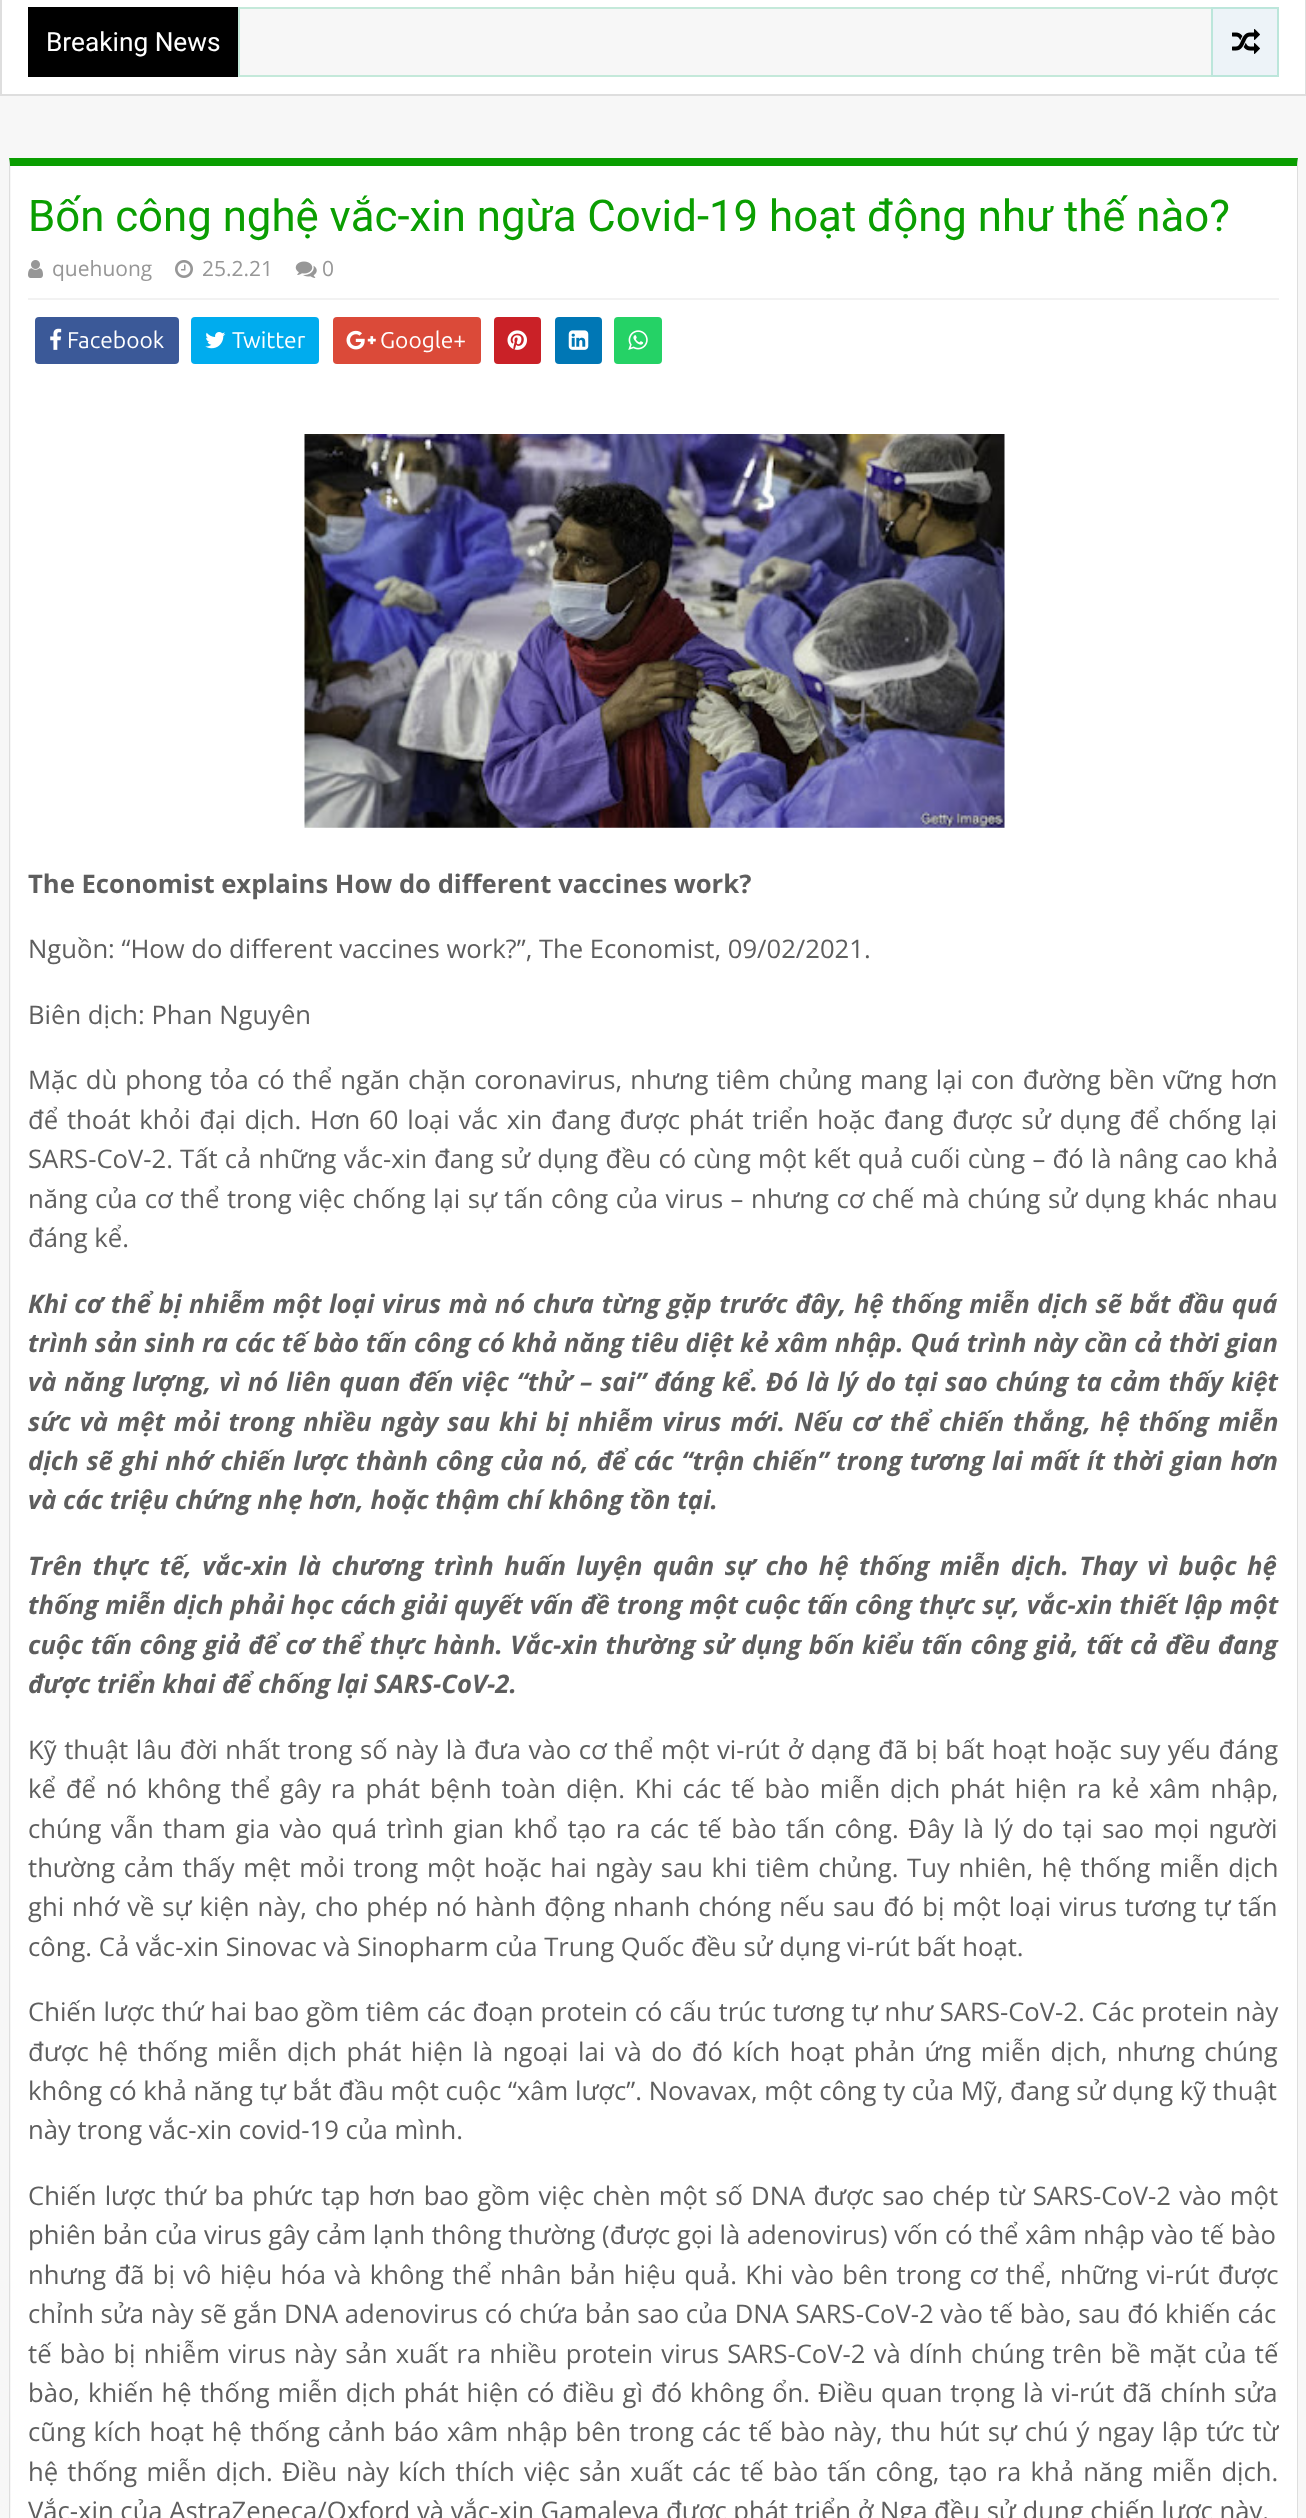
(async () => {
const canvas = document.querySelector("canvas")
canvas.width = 1306
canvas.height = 2518
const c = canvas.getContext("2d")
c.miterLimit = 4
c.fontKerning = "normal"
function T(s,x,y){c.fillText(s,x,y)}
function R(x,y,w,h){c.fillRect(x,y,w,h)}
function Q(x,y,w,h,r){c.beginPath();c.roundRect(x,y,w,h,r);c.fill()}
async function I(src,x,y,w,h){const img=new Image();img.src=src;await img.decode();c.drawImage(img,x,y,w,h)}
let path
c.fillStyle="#f7f7f7"
R(0,0,1306,2518)
c.fillStyle="#fff"
c.beginPath()
c.rect(1,-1,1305,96)
c.fill()
c.strokeStyle="#dedede"
c.lineWidth=2
c.stroke()
c.fillStyle="#f7f7f7"
R(238,7,973,70)
c.fillStyle="#000"
R(28,7,210,70)
c.font="26.25px Roboto"
c.fillStyle="#fff"
T("Breaking News",46,51)
c.fillStyle="#c4e9da"
path = new Path2D("M238 7h973v2h-971z")
c.fill(path)
path = new Path2D("M1211 77h-973l2-2h971z")
c.fill(path)
c.fillStyle="#0eb97538"
path = new Path2D("M238 77v-70l2 2v66z")
c.fill(path)
c.fillStyle="#edf3f8"
c.beginPath()
c.rect(1212,8,66,68)
c.fill()
c.strokeStyle="#bce6db"
c.stroke()
await I("1.png",1232,29,28,25)
c.fillStyle="#fff"
R(11,166,1286,2352)
c.fillStyle="#0a9e01"
path = new Path2D("M9 158h1289l-1 8h-1287z")
c.fill(path)
c.fillStyle="#dedede"
path = new Path2D("M1298 158v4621l-1-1v-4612z")
c.fill(path)
path = new Path2D("M9 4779v-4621l1 8v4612z")
c.fill(path)
c.font="43.75px Roboto"
c.fillStyle="#0a9e01"
T("Bốn công nghệ vắc-xin ngừa Covid-19 hoạt động như thế nào?",28,231)
c.fillStyle="#f2f2f2"
R(28,298,1251,2)
await I("2.png",28,260,15,18)
c.font="21px Open Sans"
c.fillStyle="#979797"
T("quehuong",52,276)
await I("3.png",175,260,18,18)
T("25.2.21",202,276)
await I("4.png",295,261,22,17)
T("0",322,276)
c.fillStyle="#3b5998"
Q(35,317,144,47,4)
await I("5.png",50,328,12,22)
c.font="22.75px Ubuntu"
c.fillStyle="#fff"
T("Facebook",67,348)
c.fillStyle="#00acee"
Q(191,317,128,47,4)
await I("6.png",205,332,21,17)
c.fillStyle="#fff"
T("Twitter",232,348)
c.fillStyle="#db4a39"
Q(333,317,148,47,4)
await I("7.png",346,330,30,20)
c.fillStyle="#fff"
T("Google+",380,348)
c.fillStyle="#ca2127"
Q(494,317,47,47,4)
await I("8.png",507,330,20,20)
c.fillStyle="#0077b5"
Q(555,317,47,47,4)
await I("9.png",568,330,21,20)
c.fillStyle="#25d266"
Q(614,317,48,47,4)
await I("10.png",628,330,20,20)
await I("11.png",304,434,701,394)
c.font="bold 25.65px Open Sans"
c.fillStyle="#5e5e5e"
T("The Economist explains How do different vaccines work?",28,893)
c.font="25.65px Open Sans"
T("Nguồn: “How do different vaccines work?”, The Economist, 09/02/2021.",28,958)
T("Biên dịch: Phan Nguyên",28,1024)
c.wordSpacing="1.5px"
T("Mặc dù phong tỏa có thể ngăn chặn coronavirus, nhưng tiêm chủng mang lại con đường bền vững hơn",28,1089)
c.wordSpacing="2.1px"
T("để thoát khỏi đại dịch. Hơn 60 loại vắc xin đang được phát triển hoặc đang được sử dụng để chống lại",28,1129)
c.wordSpacing="0.5px"
T("SARS-CoV-2. Tất cả những vắc-xin đang sử dụng đều có cùng một kết quả cuối cùng – đó là nâng cao khả",28,1168)
c.wordSpacing="0.8px"
T("năng của cơ thể trong việc chống lại sự tấn công của virus – nhưng cơ chế mà chúng sử dụng khác nhau",28,1208)
c.wordSpacing="0px"
T("đáng kể.",28,1247)
c.wordSpacing="0.9px"
c.font="italic bold 25.65px Open Sans"
T("Khi cơ thể bị nhiễm một loại virus mà nó chưa từng gặp trước đây, hệ thống miễn dịch sẽ bắt đầu quá",28,1313)
c.wordSpacing="0.2px"
T("trình sản sinh ra các tế bào tấn công có khả năng tiêu diệt kẻ xâm nhập. Quá trình này cần cả thời gian",28,1352)
c.save()
c.beginPath()
c.rect(28,408,1251,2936)
c.clip()
c.wordSpacing="1.25px"
T("và năng lượng, vì nó liên quan đến việc “thử – sai” đáng kể. Đó là lý do tại sao chúng ta cảm thấy kiệt",28,1391)
c.restore()
c.wordSpacing="2.25px"
T("sức và mệt mỏi trong nhiều ngày sau khi bị nhiễm virus mới. Nếu cơ thể chiến thắng, hệ thống miễn",28,1431)
c.wordSpacing="1.05px"
T("dịch sẽ ghi nhớ chiến lược thành công của nó, để các “trận chiến” trong tương lai mất ít thời gian hơn",28,1470)
c.wordSpacing="0px"
T("và các triệu chứng nhẹ hơn, hoặc thậm chí không tồn tại.",28,1509)
c.wordSpacing="3.75px"
T("Trên thực tế, vắc-xin là chương trình huấn luyện quân sự cho hệ thống miễn dịch. Thay vì buộc hệ",28,1575)
c.save()
c.beginPath()
c.rect(28,408,1251,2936)
c.clip()
c.wordSpacing="0.2px"
T("thống miễn dịch phải học cách giải quyết vấn đề trong một cuộc tấn công thực sự, vắc-xin thiết lập một",28,1614)
c.wordSpacing="0.9px"
T("cuộc tấn công giả để cơ thể thực hành. Vắc-xin thường sử dụng bốn kiểu tấn công giả, tất cả đều đang",28,1654)
c.restore()
c.wordSpacing="0px"
T("được triển khai để chống lại SARS-CoV-2.",28,1693)
c.wordSpacing="0.95px"
c.font="25.65px Open Sans"
T("Kỹ thuật lâu đời nhất trong số này là đưa vào cơ thể một vi-rút ở dạng đã bị bất hoạt hoặc suy yếu đáng",28,1759)
c.wordSpacing="3.2px"
T("kể để nó không thể gây ra phát bệnh toàn diện. Khi các tế bào miễn dịch phát hiện ra kẻ xâm nhập,",28,1798)
c.wordSpacing="2.8px"
T("chúng vẫn tham gia vào quá trình gian khổ tạo ra các tế bào tấn công. Đây là lý do tại sao mọi người",28,1838)
c.wordSpacing="2px"
T("thường cảm thấy mệt mỏi trong một hoặc hai ngày sau khi tiêm chủng. Tuy nhiên, hệ thống miễn dịch",28,1877)
c.wordSpacing="1.3px"
T("ghi nhớ về sự kiện này, cho phép nó hành động nhanh chóng nếu sau đó bị một loại virus tương tự tấn",28,1916)
c.wordSpacing="0px"
T("công. Cả vắc-xin Sinovac và Sinopharm của Trung Quốc đều sử dụng vi-rút bất hoạt.",28,1956)
c.wordSpacing="0.25px"
T("Chiến lược thứ hai bao gồm tiêm các đoạn protein có cấu trúc tương tự như SARS-CoV-2. Các protein này",28,2021)
c.wordSpacing="2.8px"
T("được hệ thống miễn dịch phát hiện là ngoại lai và do đó kích hoạt phản ứng miễn dịch, nhưng chúng",28,2061)
c.wordSpacing="0px"
T("không có khả năng tự bắt đầu một cuộc “xâm lược”. Novavax, một công ty của Mỹ, đang sử dụng kỹ thuật",28,2100)
T("này trong vắc-xin covid-19 của mình.",28,2139)
c.wordSpacing="1.5px"
T("Chiến lược thứ ba phức tạp hơn bao gồm việc chèn một số DNA được sao chép từ SARS-CoV-2 vào một",28,2205)
c.wordSpacing="0px"
T("phiên bản của virus gây cảm lạnh thông thường (được gọi là adenovirus) vốn có thể xâm nhập vào tế bào",28,2244)
c.wordSpacing="1.7px"
T("nhưng đã bị vô hiệu hóa và không thể nhân bản hiệu quả. Khi vào bên trong cơ thể, những vi-rút được",28,2284)
c.wordSpacing="0px"
T("chỉnh sửa này sẽ gắn DNA adenovirus có chứa bản sao của DNA SARS-CoV-2 vào tế bào, sau đó khiến các",28,2323)
c.wordSpacing="1.6px"
T("tế bào bị nhiễm virus này sản xuất ra nhiều protein virus SARS-CoV-2 và dính chúng trên bề mặt của tế",28,2363)
c.wordSpacing="1.25px"
T("bào, khiến hệ thống miễn dịch phát hiện có điều gì đó không ổn. Điều quan trọng là vi-rút đã chính sửa",28,2402)
c.save()
c.beginPath()
c.rect(28,408,1251,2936)
c.clip()
T("cũng kích hoạt hệ thống cảnh báo xâm nhập bên trong các tế bào này, thu hút sự chú ý ngay lập tức từ",28,2441)
c.restore()
c.wordSpacing="2.5px"
T("hệ thống miễn dịch. Điều này kích thích việc sản xuất các tế bào tấn công, tạo ra khả năng miễn dịch.",28,2481)
c.wordSpacing="0px"
T("Vắc-xin của AstraZeneca/Oxford và vắc-xin Gamaleya được phát triển ở Nga đều sử dụng chiến lược này.",28,2520)
})()
